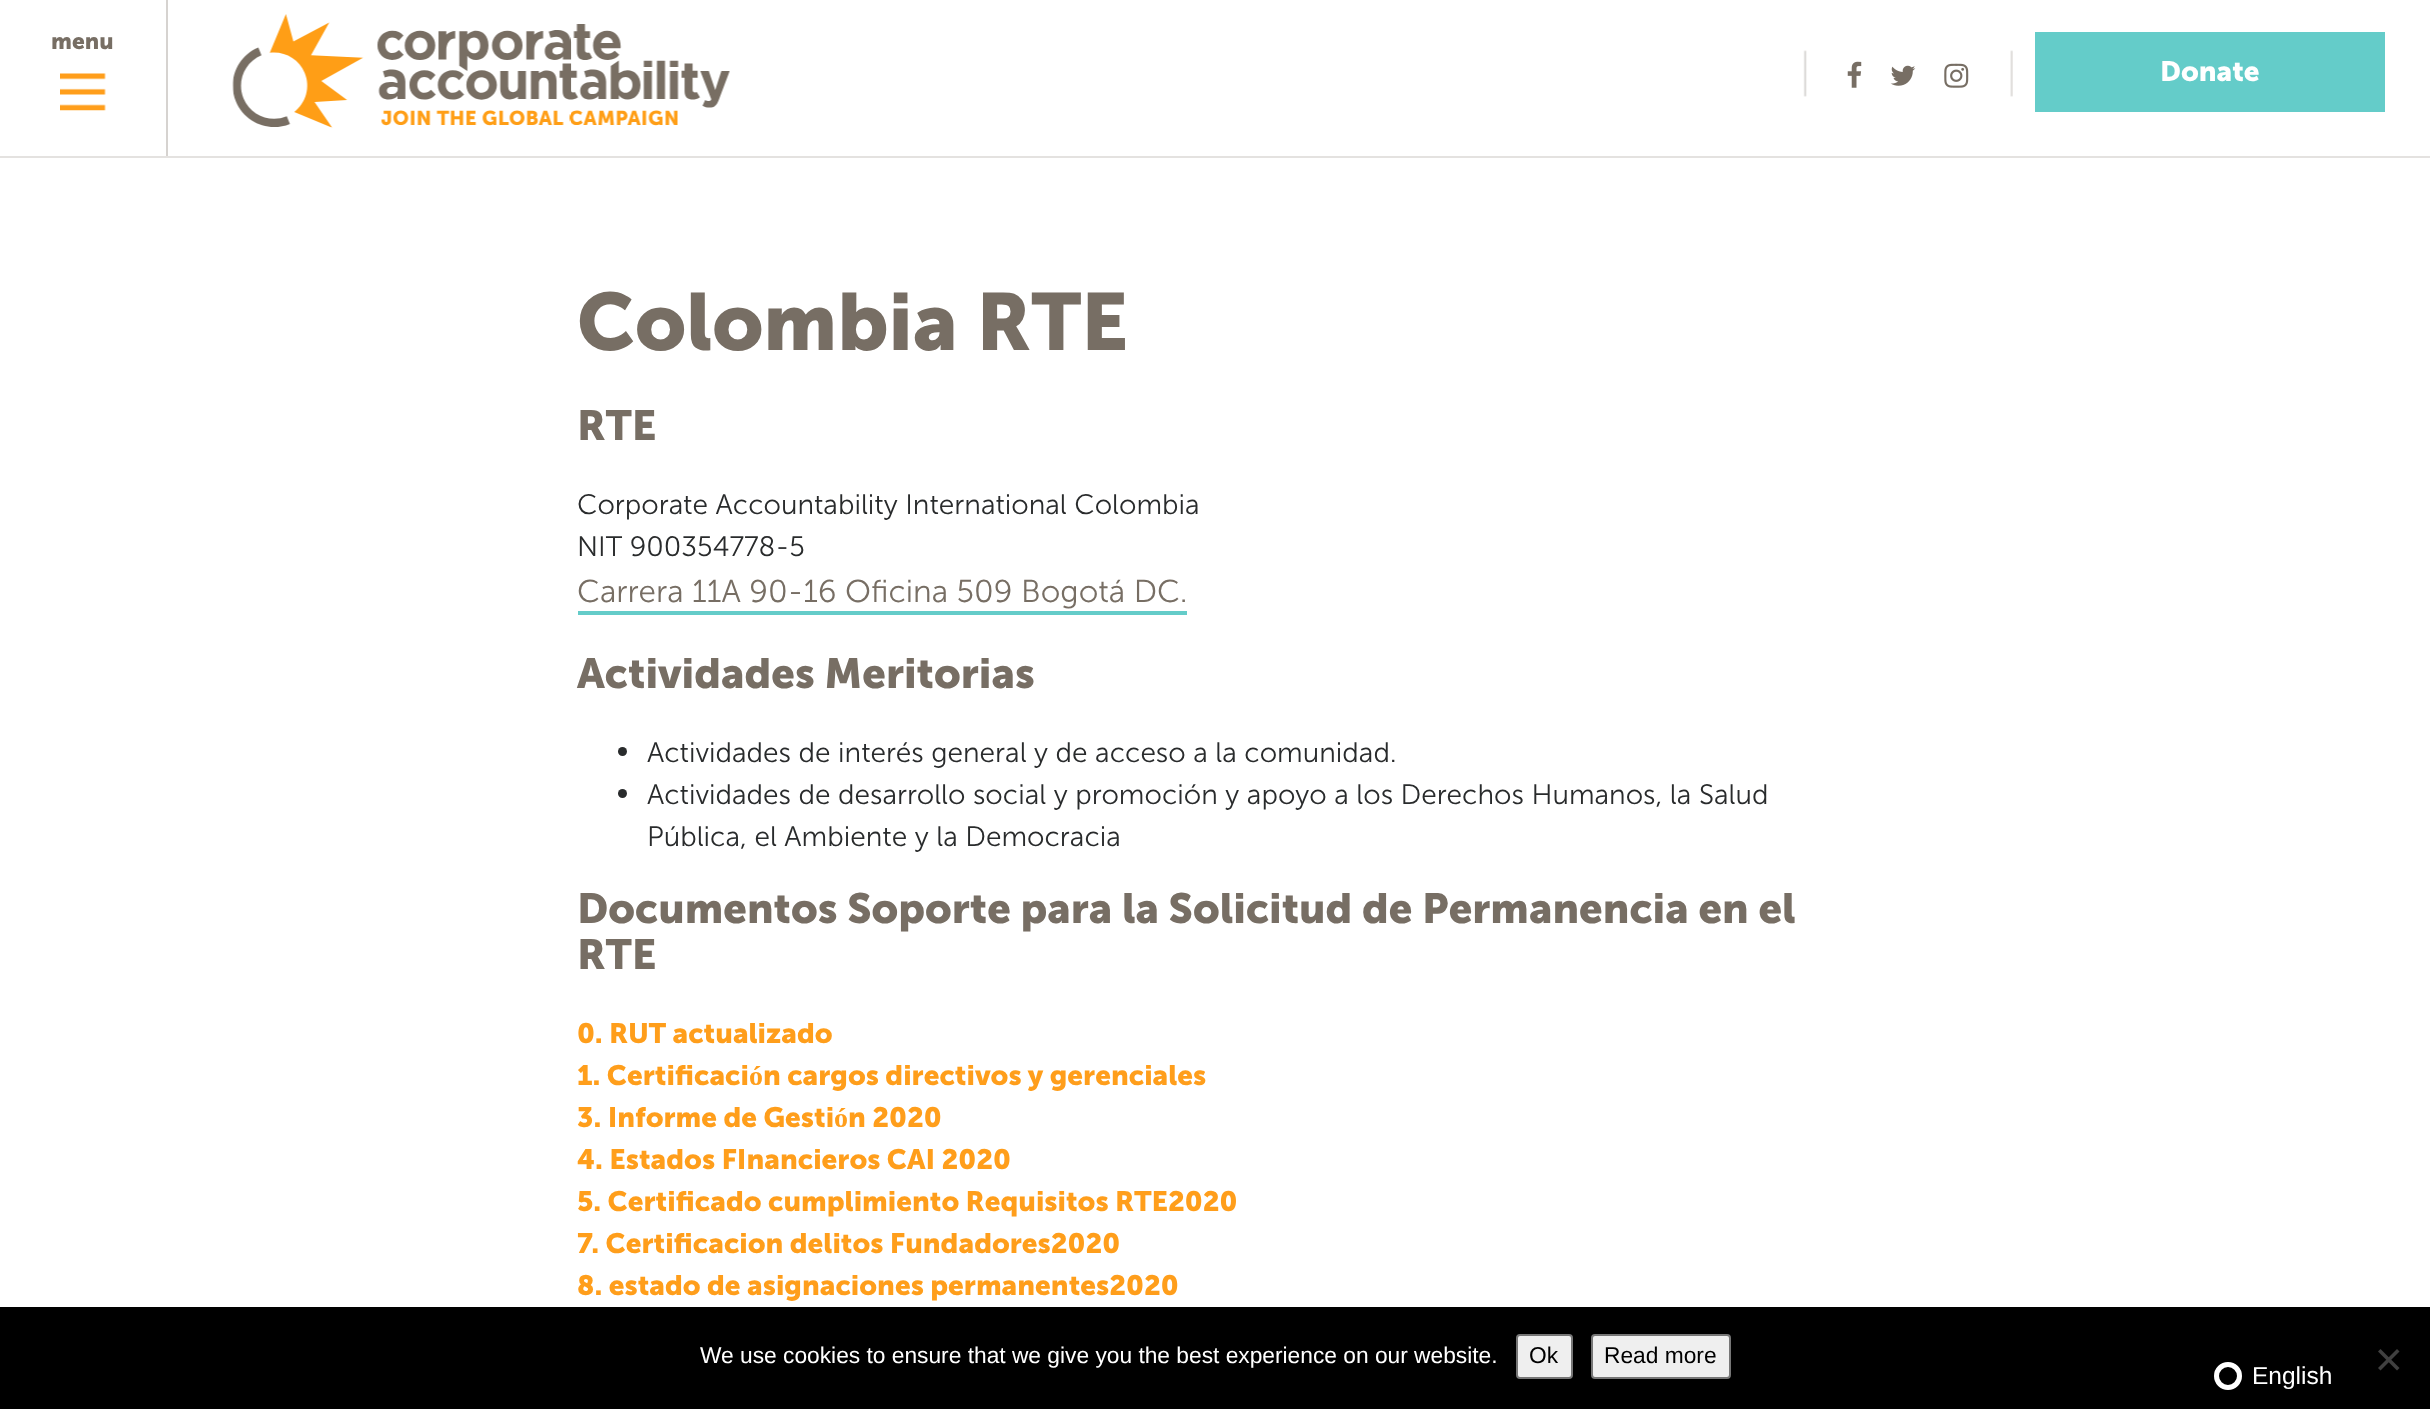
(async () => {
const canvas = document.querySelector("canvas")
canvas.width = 2430
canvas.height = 1409
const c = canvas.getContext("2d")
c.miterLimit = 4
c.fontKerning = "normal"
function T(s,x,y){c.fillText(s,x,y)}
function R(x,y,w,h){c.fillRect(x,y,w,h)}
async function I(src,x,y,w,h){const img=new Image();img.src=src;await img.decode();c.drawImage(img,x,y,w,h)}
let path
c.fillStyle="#fff"
R(0,0,2430,1409)
c.fillStyle="#e4e2e0"
R(0,156,2430,2)
c.font="bold 22.75px 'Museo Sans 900'"
c.fillStyle="#776e64"
T("menu",51,49)
await I("1.png",60,73,46,38)
c.fillStyle="#d6d3d0"
R(166,0,2,156)
await I("2.png",232,14,498,114)
await I("3.png",1803,50,4,47)
await I("4.png",1847,61,15,27)
await I("5.png",1890,65,26,21)
await I("6.png",1944,63,25,25)
await I("7.png",2010,50,3,47)
c.fillStyle="#64ccc9"
R(2035,32,350,80)
c.font="bold 28px 'Museo Sans 900'"
c.fillStyle="#fff"
T("Donate",2160,81)
c.font="bold 80.5px 'Museo Sans 900'"
c.fillStyle="#776e64"
T("Colombia RTE",577,350)
c.font="bold 42px 'Museo Sans 900'"
T("RTE",577,440)
c.font="300 28px 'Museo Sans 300'"
c.fillStyle="#292b2c"
T("Corporate Accountability International Colombia",577,514)
T("NIT 900354778-5",577,556)
c.font="300 31.5px 'Museo Sans 300'"
c.fillStyle="#776e64"
T("Carrera 11A 90-16 Oficina 509 Bogotá DC.",577,602)
c.fillStyle="#64ccc9"
R(578,611,609,4)
c.font="bold 42px 'Museo Sans 900'"
c.fillStyle="#776e64"
T("Actividades Meritorias",577,688)
c.fillStyle="#292b2c"
c.beginPath()
c.arc(622.5,751.5,4.5,0,7)
c.fill()
c.font="300 28px 'Museo Sans 300'"
T("Actividades de interés general y de acceso a la comunidad.",647,762)
c.beginPath()
c.arc(622.5,793.5,4.5,0,7)
c.fill()
T("Actividades de desarrollo social y promoción y apoyo a los Derechos Humanos, la Salud",647,804)
T("Pública, el Ambiente y la Democracia",647,846)
c.font="bold 42px 'Museo Sans 900'"
c.fillStyle="#776e64"
T("Documentos Soporte para la Solicitud de Permanencia en el",577,923)
T("RTE",577,969)
c.font="bold 28px 'Museo Sans 900'"
c.fillStyle="#ff9e1b"
T("0. RUT actualizado",577,1043)
T("1. Certificación cargos directivos y gerenciales",577,1085)
T("3. Informe de Gestión 2020",577,1127)
T("4. Estados FInancieros CAI 2020",577,1169)
T("5. Certificado cumplimiento Requisitos RTE2020",577,1211)
T("7. Certificacion delitos Fundadores2020",577,1253)
T("8. estado de asignaciones permanentes2020",577,1295)
c.fillStyle="#000"
R(0,1307,2430,102)
c.font="22.75px Liberation Sans"
c.fillStyle="#fff"
T("We use cookies to ensure that we give you the best experience on our website.",700,1363)
c.fillStyle="#efefef"
c.beginPath()
c.roundRect(1517,1335,55,43,3)
c.fill()
c.strokeStyle="#767676"
c.lineWidth=2
c.stroke()
c.fillStyle="#000"
T("Ok",1529,1363)
c.fillStyle="#efefef"
c.beginPath()
c.roundRect(1592,1335,138,43,3)
c.fill()
c.stroke()
c.fillStyle="#000"
T("Read more",1604,1363)
c.fillStyle="#404040"
path = new Path2D("M2397 1349l2.5 2.5l-19 19l-2.5-2.5z")
c.fill(path)
path = new Path2D("M2378 1351.5l2.5-2.5l19 19l-2.5 2.5z")
c.fill(path)
c.beginPath()
c.arc(2228,1376,11.5,0,7)
c.strokeStyle="#fff"
c.lineWidth=5
c.stroke()
c.font="24.5px Liberation Sans"
c.fillStyle="#fff"
T("English",2252,1384)
})()
